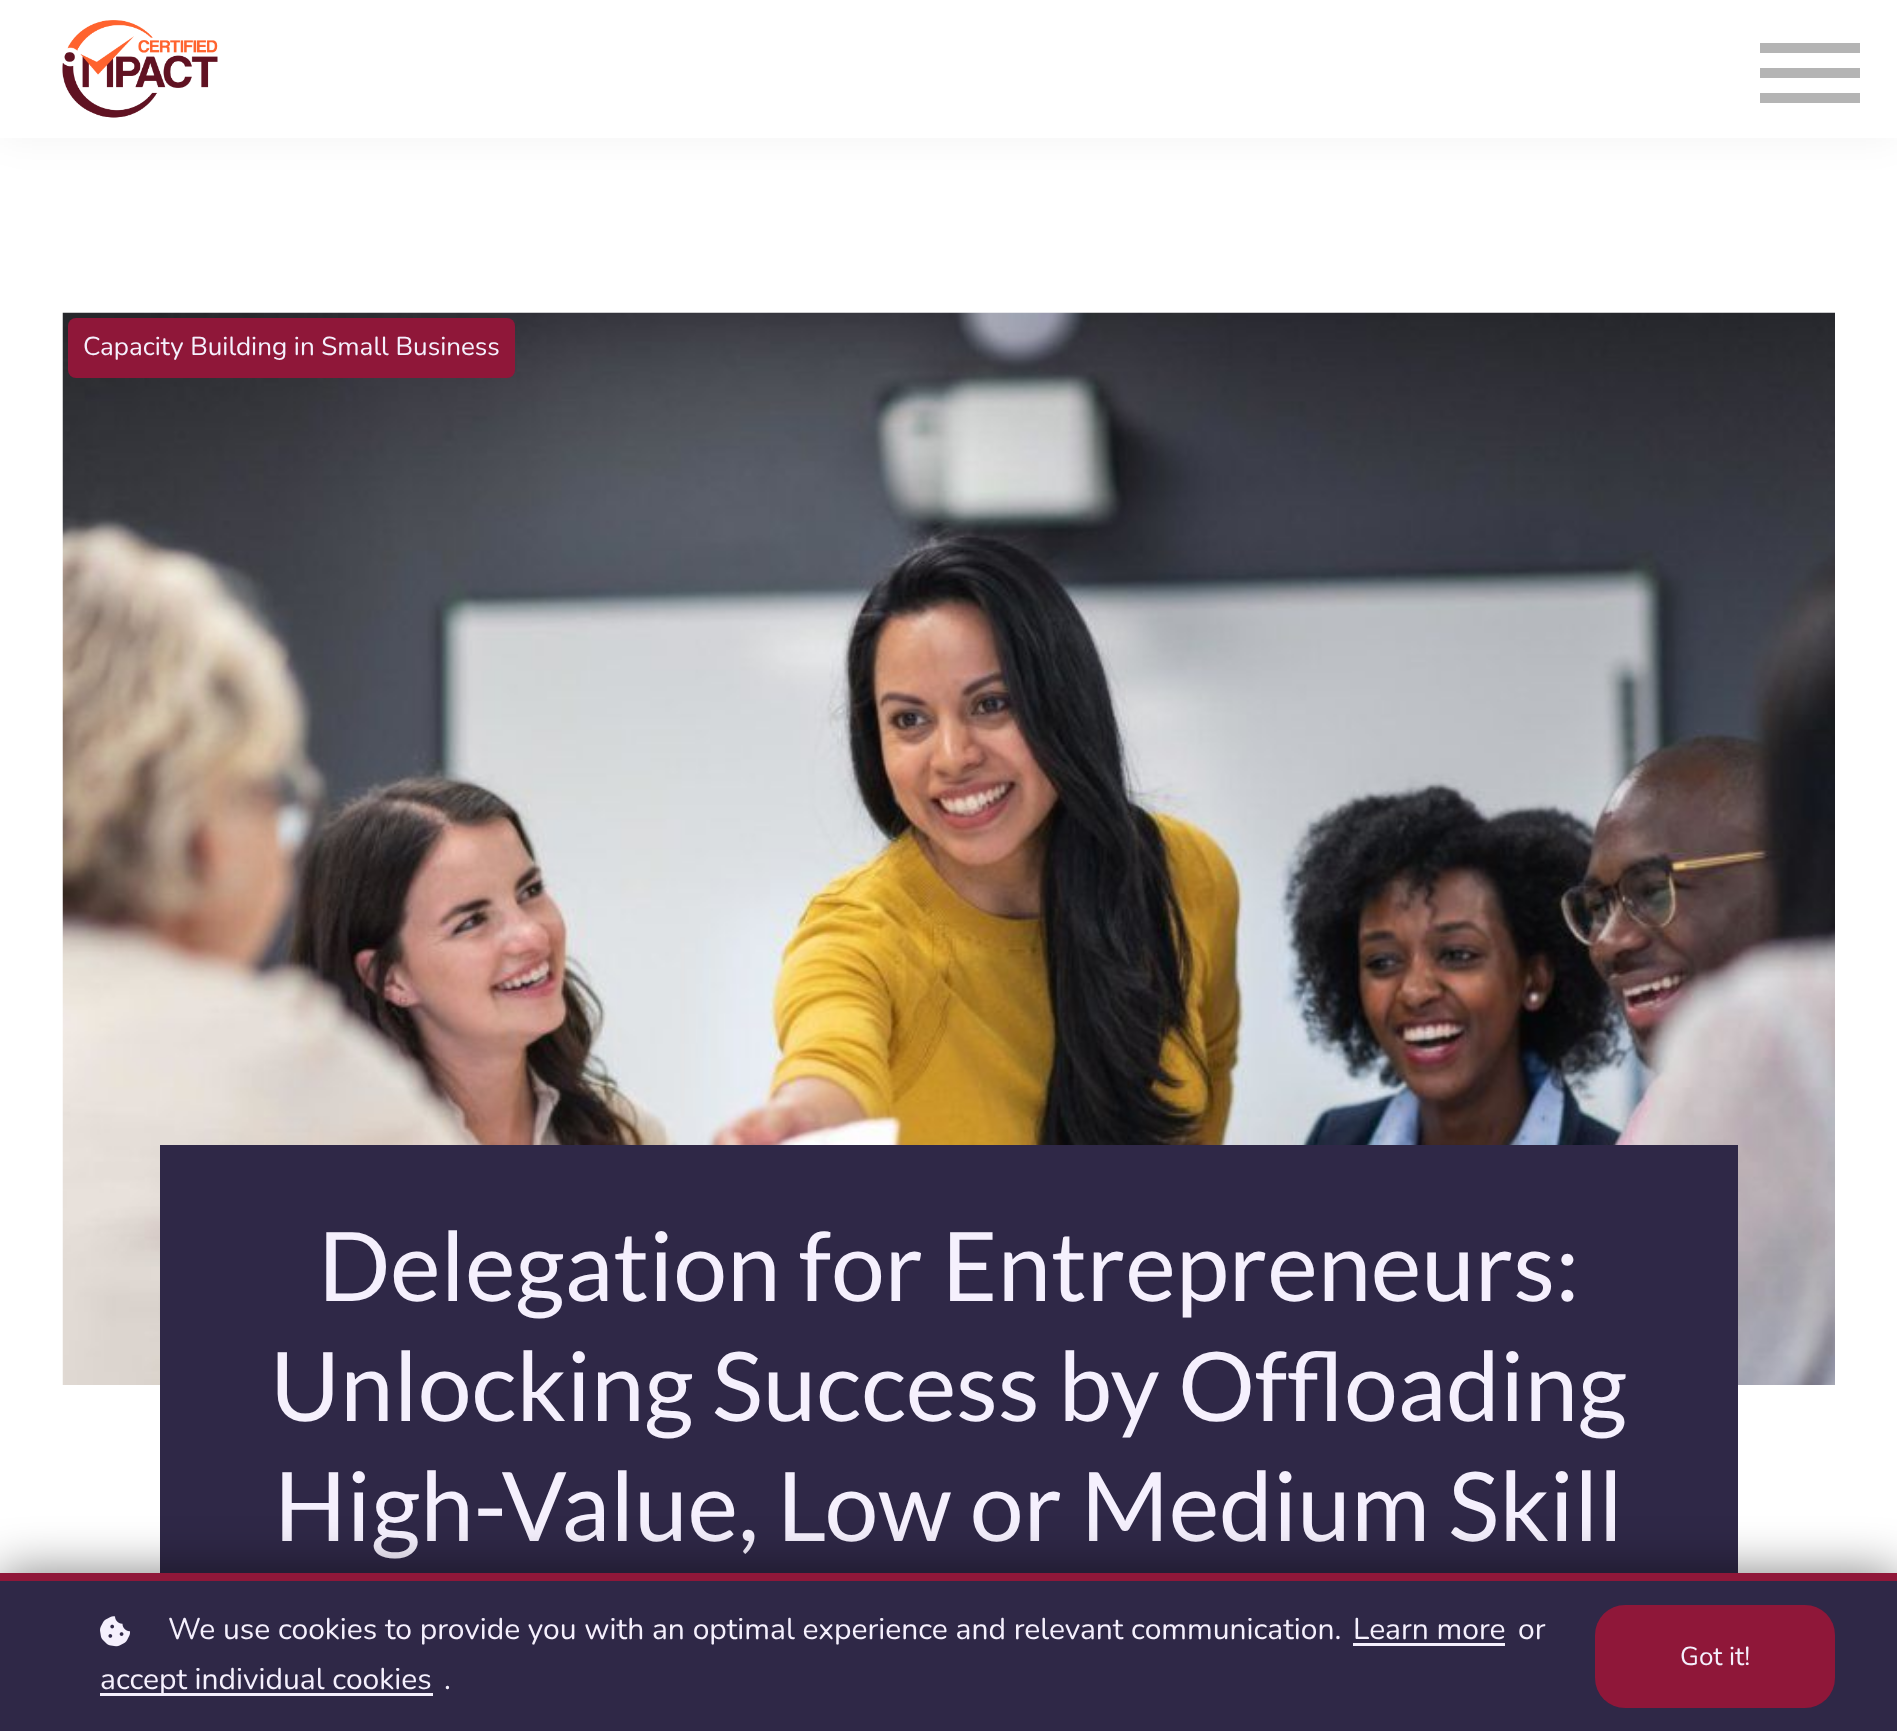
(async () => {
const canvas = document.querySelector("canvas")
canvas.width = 1897
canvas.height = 1731
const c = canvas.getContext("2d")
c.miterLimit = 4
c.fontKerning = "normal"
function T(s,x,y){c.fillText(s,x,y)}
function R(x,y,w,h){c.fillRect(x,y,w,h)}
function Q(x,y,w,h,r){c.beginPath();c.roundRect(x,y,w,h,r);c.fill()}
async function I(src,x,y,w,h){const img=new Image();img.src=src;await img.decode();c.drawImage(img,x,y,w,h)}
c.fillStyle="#fff"
R(0,0,1897,1731)
c.fillStyle="#0000000d"
c.filter="blur(19px)"
c.beginPath()
c.rect(0,0,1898,138)
c.fill()
c.filter="none"
c.fillStyle="#fff"
R(0,0,1897,138)
await I("1.png",62,20,156,98)
c.fillStyle="#b4b4b4"
R(1760,93,100,10)
R(1760,43,100,10)
R(1760,68,100,10)
await I("2.png",62,312,1773,1073)
c.fillStyle="#8f1739"
Q(68,318,447,60,8)
c.font="26px Nunito"
c.fillStyle="#f5f0fd"
T("Capacity Building in Small Business",83,355)
c.fillStyle="#2f2847"
R(160,1145,1578,428)
c.font="96px Lato"
c.fillStyle="#f5f0fd"
T("Delegation for Entrepreneurs:",318,1301)
T("Unlocking Success by Offloading",270,1421)
T("High-Value, Low or Medium Skill",274,1541)
c.fillStyle="#00000080"
c.filter="blur(25px)"
c.beginPath()
c.rect(0,1573,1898,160)
c.fill()
c.filter="none"
c.fillStyle="#2f2847"
R(0,1581,1897,150)
c.fillStyle="#8f1739"
R(0,1573,1897,8)
await I("3.png",100,1616,30,31)
c.font="30px Nunito"
c.fillStyle="#f5f0fd"
T("We use cookies to provide you with an optimal experience and relevant communication.",168,1639)
T("Learn more",1353,1639)
R(1353,1643,152,3)
T("or",1518,1639)
R(100,1693,333,3)
T("accept individual cookies",100,1689)
T(".",444,1689)
c.fillStyle="#8f1739"
Q(1595,1605,240,103,30)
c.font="26px Nunito"
c.fillStyle="#f5f0fd"
T("Got it!",1680,1665)
})()
